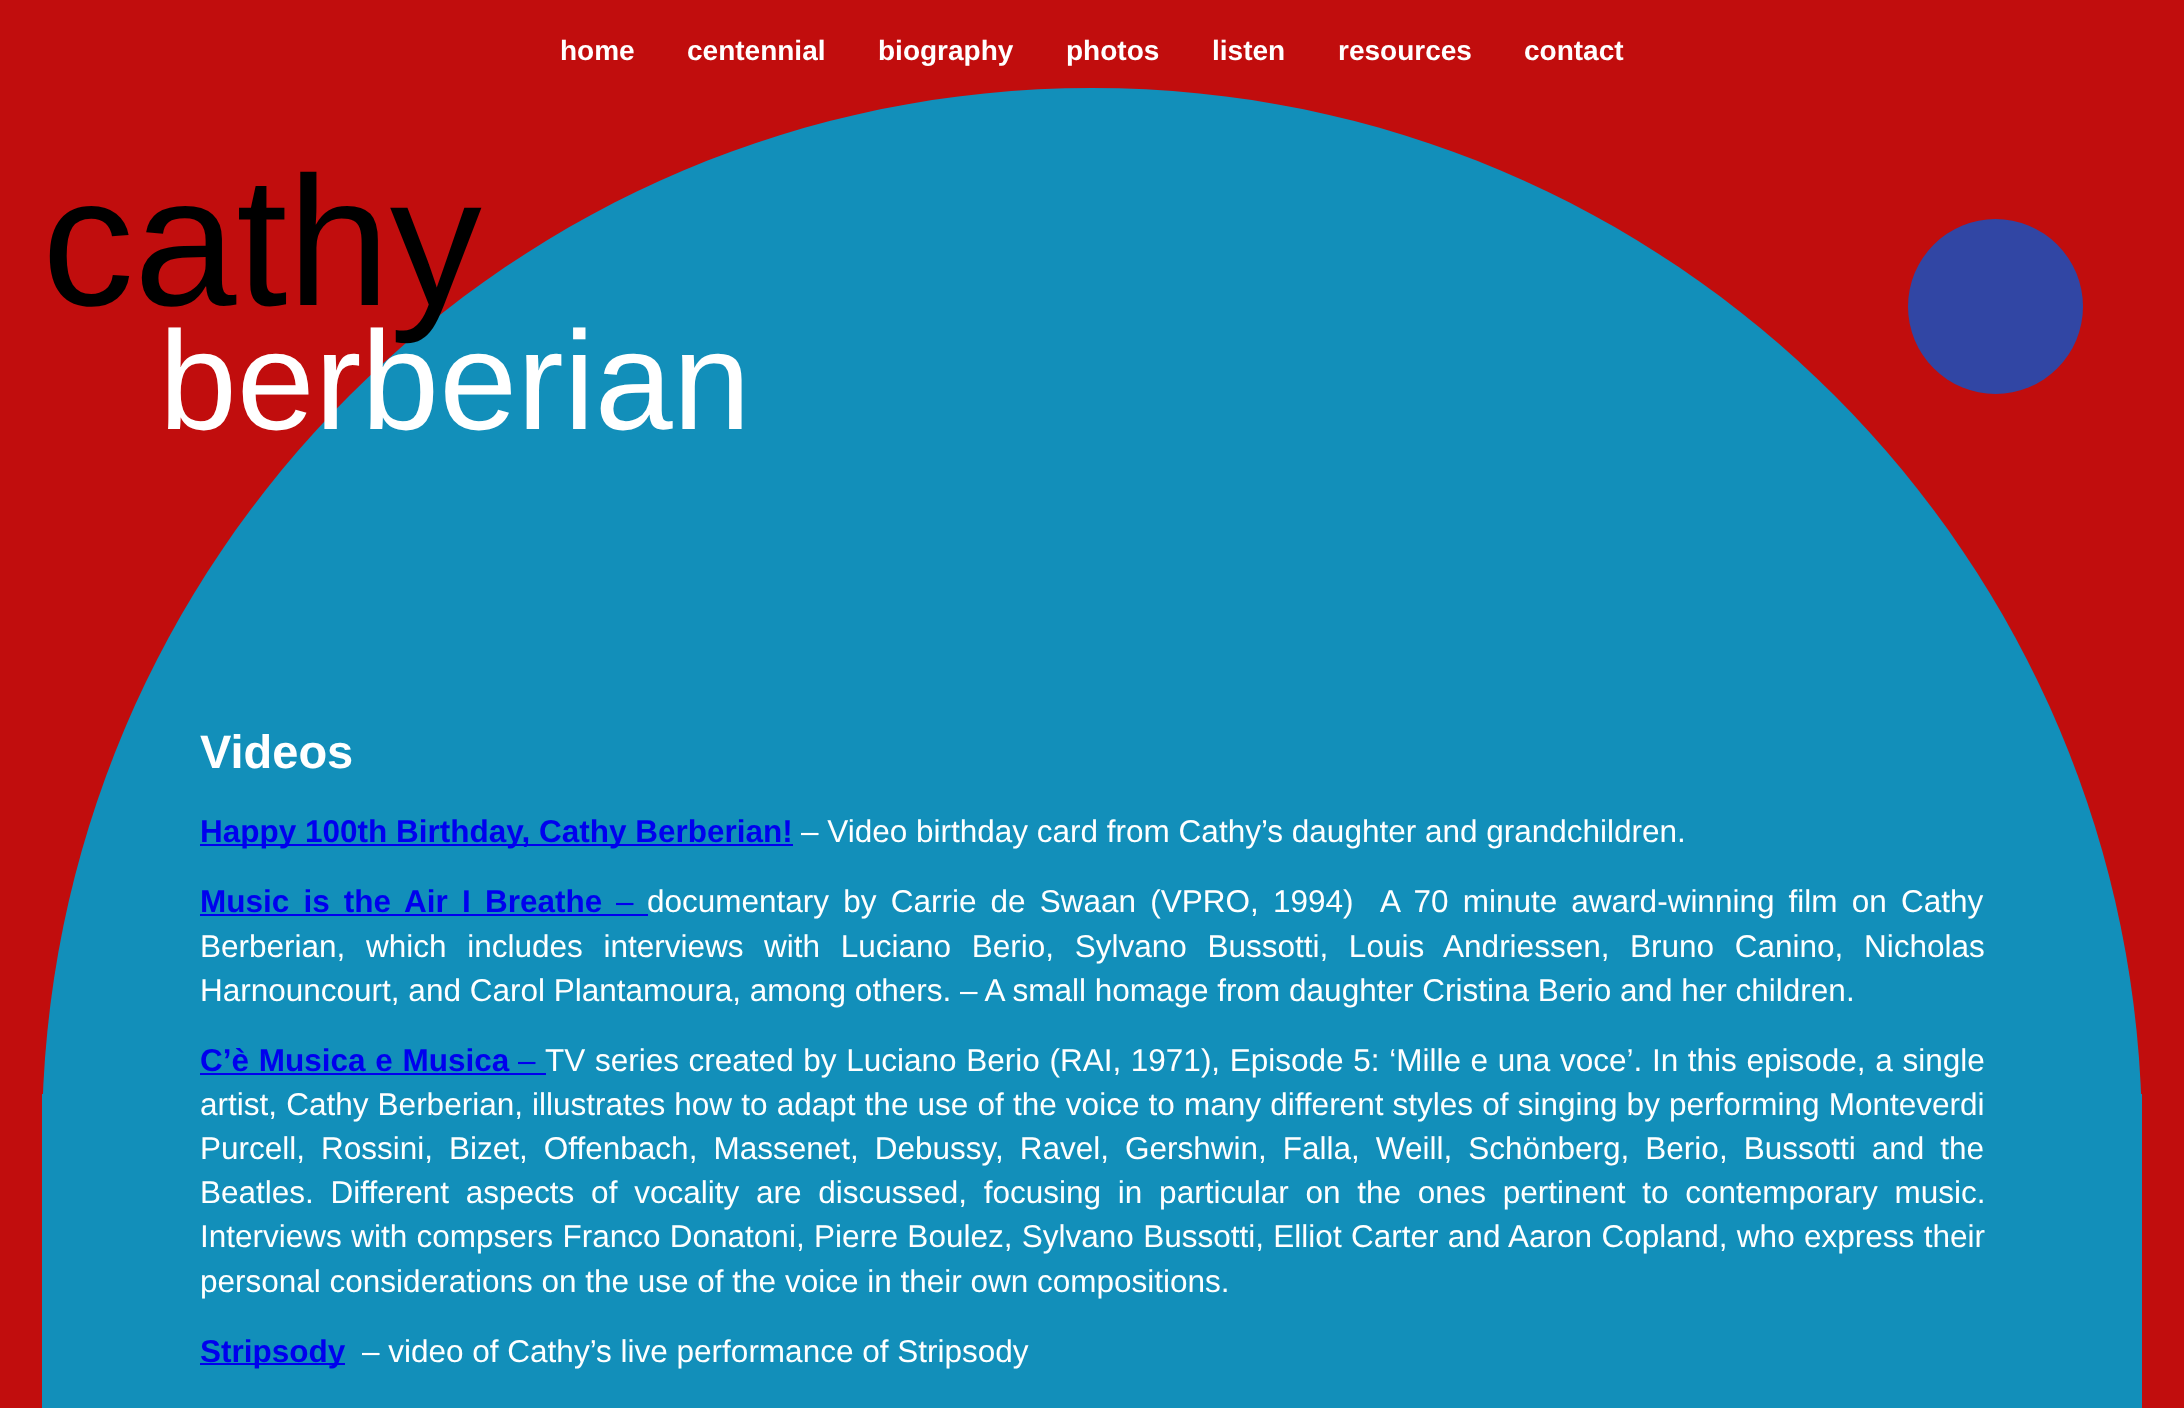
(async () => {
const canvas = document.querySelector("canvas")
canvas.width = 2184
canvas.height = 1408
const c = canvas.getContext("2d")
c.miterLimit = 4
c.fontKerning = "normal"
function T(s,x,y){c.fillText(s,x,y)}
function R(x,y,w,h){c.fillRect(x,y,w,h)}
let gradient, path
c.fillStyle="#c10d0d"
R(0,0,2184,1408)
c.fillStyle="#128fba"
path = new Path2D("M1092 88c580 0 1050 470 1050 1050h-2100c0-580 470-1050 1050-1050z")
c.fill(path)
c.font="bold 28px Liberation Sans"
c.fillStyle="#fff"
T("home",560,60)
T("centennial",687,60)
T("biography",878,60)
T("photos",1066,60)
T("listen",1212,60)
T("resources",1338,60)
T("contact",1524,60)
c.font="184px Liberation Sans"
c.fillStyle="#000"
T("cathy",42,305)
c.font="140px Liberation Sans"
c.fillStyle="#fff"
T("berberian",159,429)
c.fillStyle="#3146a4"
c.beginPath()
c.arc(1995.5,306.5,87.5,0,7)
c.fill()
c.font="bold 47px Liberation Sans"
c.fillStyle="#fff"
T("Videos",200,768)
gradient = c.createLinearGradient(1092,810,1092,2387)
gradient.addColorStop(0,"#00000000")
gradient.addColorStop(.18,"#128fba00")
gradient.addColorStop(.18,"#128fba")
gradient.addColorStop(.71,"#128fba")
gradient.addColorStop(.71,"#128fba00")
gradient.addColorStop(1,"#00000000")
c.fillStyle = gradient
R(42,1094,2100,314)
c.fillStyle="#00e"
R(200,844,593,2)
c.font="bold 31.5px Liberation Sans"
T("Happy 100th Birthday, Cathy Berberian!",200,842)
c.font="31.5px Liberation Sans"
c.fillStyle="#fff"
T("– Video birthday card from Cathy’s daughter and grandchildren.",801,842)
c.wordSpacing="5.4px"
c.font="bold 31.5px Liberation Sans"
c.fillStyle="#00e"
T("Music is the Air I Breathe",200,912)
c.wordSpacing="0px"
c.font="31.5px Liberation Sans"
T("–",616,912)
R(200,914,448,2)
c.wordSpacing="5.4px"
c.fillStyle="#fff"
T("documentary by Carrie de Swaan (VPRO, 1994)  A 70 minute award-winning film on Cathy",647,912)
c.wordSpacing="11.9px"
T("Berberian, which includes interviews with Luciano Berio, Sylvano Bussotti, Louis Andriessen, Bruno Canino, Nicholas",200,957)
c.wordSpacing="0px"
T("Harnouncourt, and Carol Plantamoura, among others. – A small homage from daughter Cristina Berio and her children.",200,1001)
c.wordSpacing="1px"
c.font="bold 31.5px Liberation Sans"
c.fillStyle="#00e"
T("C’è Musica e Musica",200,1071)
c.wordSpacing="0px"
c.font="31.5px Liberation Sans"
T("–",518,1071)
R(200,1073,346,2)
c.wordSpacing="0.9px"
c.fillStyle="#fff"
T("TV series created by Luciano Berio (RAI, 1971), Episode 5: ‘Mille e una voce’. In this episode, a single",545,1071)
c.wordSpacing="0.4px"
T("artist, Cathy Berberian, illustrates how to adapt the use of the voice to many different styles of singing by performing Monteverdi",200,1115)
c.wordSpacing="7.25px"
T("Purcell, Rossini, Bizet, Offenbach, Massenet, Debussy, Ravel, Gershwin, Falla, Weill, Schönberg, Berio, Bussotti and the",200,1159)
c.wordSpacing="8px"
T("Beatles. Different aspects of vocality are discussed, focusing in particular on the ones pertinent to contemporary music.",200,1203)
c.wordSpacing="0.6px"
T("Interviews with compsers Franco Donatoni, Pierre Boulez, Sylvano Bussotti, Elliot Carter and Aaron Copland, who express their",200,1247)
c.wordSpacing="0px"
T("personal considerations on the use of the voice in their own compositions.",200,1292)
c.fillStyle="#00e"
R(200,1363,145,2)
c.font="bold 31.5px Liberation Sans"
T("Stripsody",200,1362)
c.font="31.5px Liberation Sans"
c.fillStyle="#fff"
T("– video of Cathy’s live performance of Stripsody",362,1362)
})()
